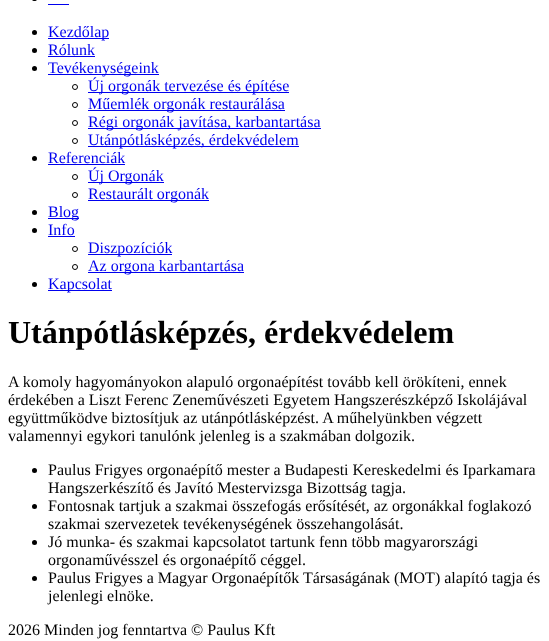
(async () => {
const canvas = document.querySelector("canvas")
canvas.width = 549
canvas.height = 641
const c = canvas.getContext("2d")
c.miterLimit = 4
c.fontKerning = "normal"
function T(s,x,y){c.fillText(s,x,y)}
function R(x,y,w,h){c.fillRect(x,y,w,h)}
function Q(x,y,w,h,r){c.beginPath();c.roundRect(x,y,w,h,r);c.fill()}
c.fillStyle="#fff"
R(0,0,549,641)
c.fillStyle="#000"
Q(32,-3,5,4,2.5)
c.fillStyle="#00e"
R(48,4,21,1)
c.fillStyle="#000"
c.beginPath()
c.arc(34.5,32.5,2.5,0,7)
c.fill()
c.fillStyle="#00e"
R(48,38,61,1)
c.font="16px Liberation Serif"
T("Kezdőlap",48,37)
c.fillStyle="#000"
c.beginPath()
c.arc(34.5,50.5,2.5,0,7)
c.fill()
c.fillStyle="#00e"
T("Rólunk",48,55)
R(48,56,47,1)
c.fillStyle="#000"
c.beginPath()
c.arc(34.5,68.5,2.5,0,7)
c.fill()
c.fillStyle="#00e"
R(48,74,111,1)
T("Tevékenységeink",48,73)
c.beginPath()
c.arc(75,87,2.5,0,7)
c.strokeStyle="#000"
c.stroke()
R(88,92,201,1)
T("Új orgonák tervezése és építése",88,91)
c.beginPath()
c.arc(75,105,2.5,0,7)
c.stroke()
R(88,110,197,1)
T("Műemlék orgonák restaurálása",88,109)
c.beginPath()
c.arc(75,123,2.5,0,7)
c.stroke()
R(88,128,233,1)
T("Régi orgonák javítása, karbantartása",88,127)
c.beginPath()
c.arc(75,141,2.5,0,7)
c.stroke()
R(88,146,211,1)
T("Utánpótlásképzés, érdekvédelem",88,145)
c.fillStyle="#000"
c.beginPath()
c.arc(34.5,158.5,2.5,0,7)
c.fill()
c.fillStyle="#00e"
T("Referenciák",48,163)
R(48,164,77,1)
c.beginPath()
c.arc(75,177,2.5,0,7)
c.stroke()
R(88,182,76,1)
T("Új Orgonák",88,181)
c.beginPath()
c.arc(75,195,2.5,0,7)
c.stroke()
R(88,200,121,1)
T("Restaurált orgonák",88,199)
c.fillStyle="#000"
c.beginPath()
c.arc(34.5,212.5,2.5,0,7)
c.fill()
c.fillStyle="#00e"
R(48,218,31,1)
T("Blog",48,217)
c.fillStyle="#000"
c.beginPath()
c.arc(34.5,230.5,2.5,0,7)
c.fill()
c.fillStyle="#00e"
T("Info",48,235)
R(48,236,27,1)
c.beginPath()
c.arc(75,249,2.5,0,7)
c.stroke()
R(88,254,84,1)
T("Diszpozíciók",88,253)
c.beginPath()
c.arc(75,267,2.5,0,7)
c.stroke()
R(88,272,156,1)
T("Az orgona karbantartása",88,271)
c.fillStyle="#000"
c.beginPath()
c.arc(34.5,284.5,2.5,0,7)
c.fill()
c.fillStyle="#00e"
R(48,290,64,1)
T("Kapcsolat",48,289)
c.font="bold 32px Liberation Serif"
c.fillStyle="#000"
T("Utánpótlásképzés, érdekvédelem",8,343)
c.font="16px Liberation Serif"
T("A komoly hagyományokon alapuló orgonaépítést tovább kell örökíteni, ennek",8,387)
T("érdekében a Liszt Ferenc Zeneművészeti Egyetem Hangszerészképző Iskolájával",8,405)
T("együttműködve biztosítjuk az utánpótlásképzést. A műhelyünkben végzett",8,423)
T("valamennyi egykori tanulónk jelenleg is a szakmában dolgozik.",8,441)
c.beginPath()
c.arc(34.5,470.5,2.5,0,7)
c.fill()
T("Paulus Frigyes orgonaépítő mester a Budapesti Kereskedelmi és Iparkamara",48,475)
T("Hangszerkészítő és Javító Mestervizsga Bizottság tagja.",48,493)
c.beginPath()
c.arc(34.5,506.5,2.5,0,7)
c.fill()
T("Fontosnak tartjuk a szakmai összefogás erősítését, az orgonákkal foglakozó",48,511)
T("szakmai szervezetek tevékenységének összehangolását.",48,529)
c.beginPath()
c.arc(34.5,542.5,2.5,0,7)
c.fill()
T("Jó munka- és szakmai kapcsolatot tartunk fenn több magyarországi",48,547)
T("orgonaművésszel és orgonaépítő céggel.",48,565)
c.beginPath()
c.arc(34.5,578.5,2.5,0,7)
c.fill()
T("Paulus Frigyes a Magyar Orgonaépítők Társaságának (MOT) alapító tagja és",48,583)
T("jelenlegi elnöke.",48,601)
T("2026 Minden jog fenntartva © Paulus Kft",8,635)
})()
